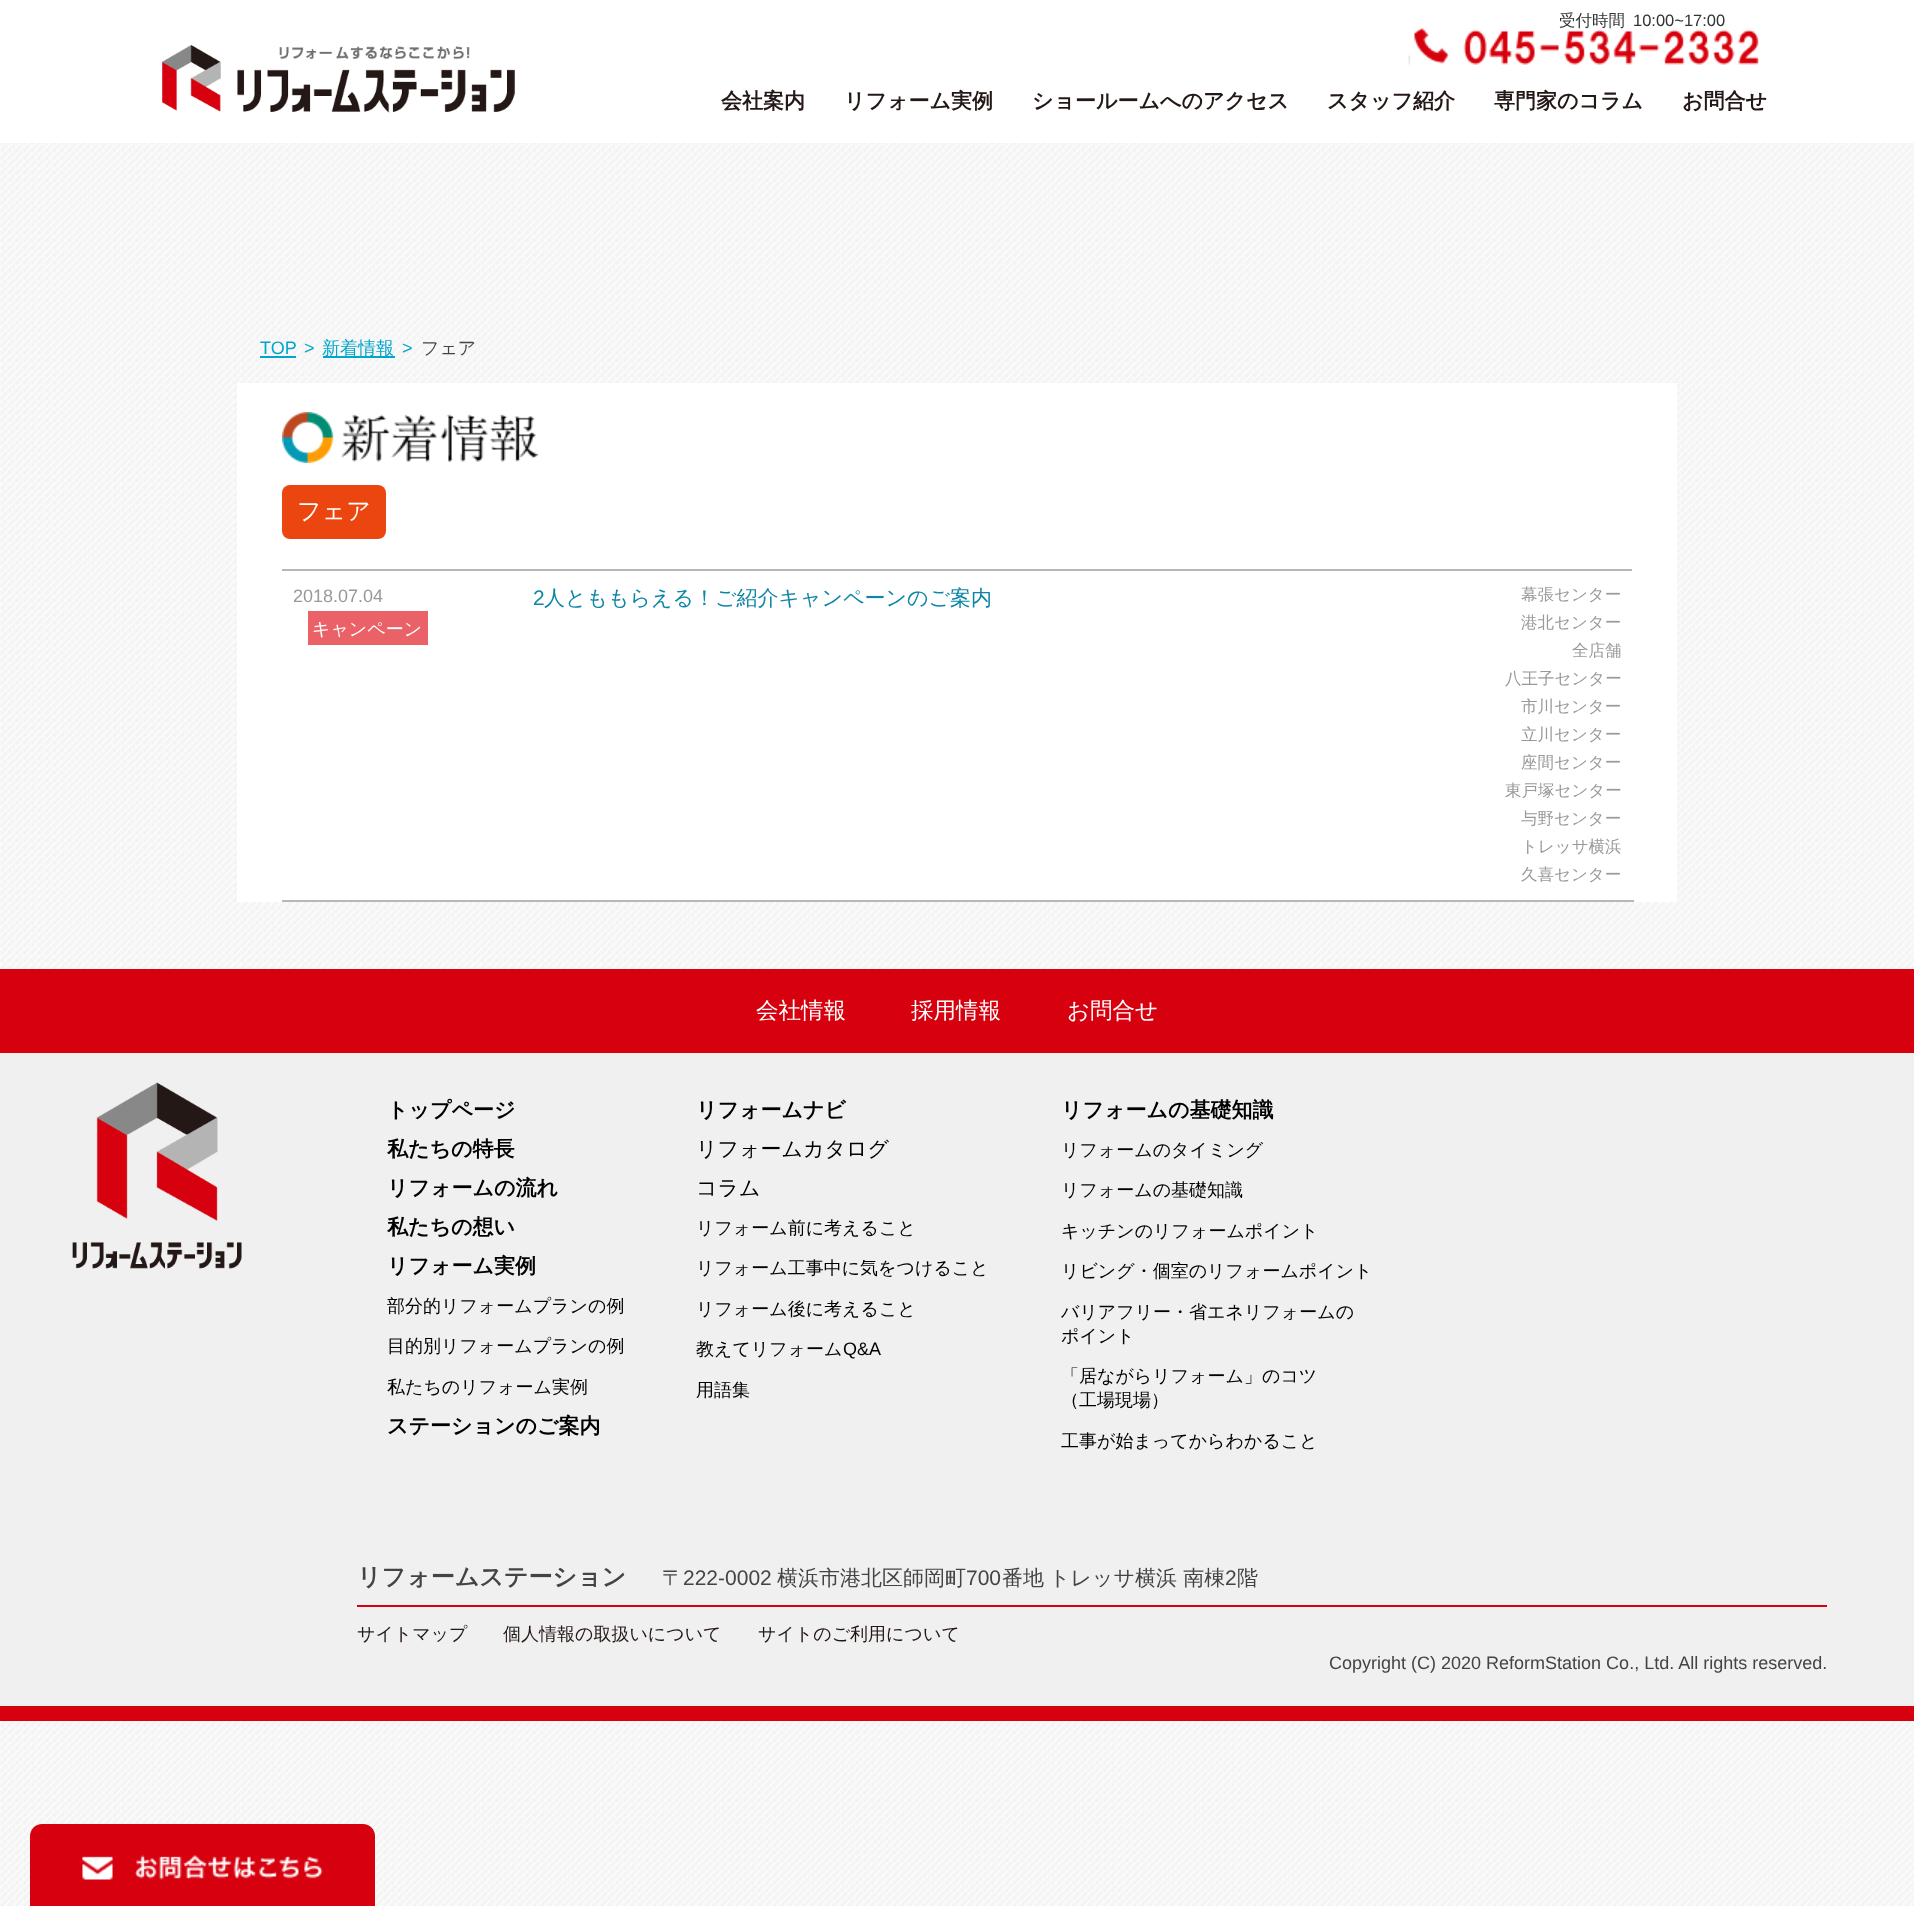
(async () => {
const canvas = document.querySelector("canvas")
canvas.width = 1914
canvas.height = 1906
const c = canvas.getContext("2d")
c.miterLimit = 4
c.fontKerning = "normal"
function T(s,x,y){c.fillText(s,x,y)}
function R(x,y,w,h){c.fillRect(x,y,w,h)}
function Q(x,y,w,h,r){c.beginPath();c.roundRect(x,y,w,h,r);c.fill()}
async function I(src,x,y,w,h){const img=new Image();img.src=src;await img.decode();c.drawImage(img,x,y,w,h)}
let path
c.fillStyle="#fff"
R(0,0,1914,1906)
await I("1.png",162,45,353,68)
c.font="500 16.5px WenQuanYi Zen Hei"
c.fillStyle="#333"
T("受付時間",1559,26)
c.font="16.5px Liberation Sans"
T("10:00~17:00",1633,26)
await I("2.png",1408,28,351,37)
c.font="bold 21px WenQuanYi Zen Hei"
c.fillStyle="#231815"
T("会社案内",721,108)
T("リフォーム実例",844,108)
T("ショールームへのアクセス",1032,108)
T("スタッフ紹介",1327,108)
T("専門家のコラム",1494,108)
T("お問合せ",1682,108)
await I("3.png",0,143,1914,1763)
c.font="18px Liberation Sans"
c.fillStyle="#00a7cb"
T("TOP",260,354)
R(260,356,36,2)
T(">",304,354)
R(323,356,72,2)
c.font="500 18px WenQuanYi Zen Hei"
T("新着情報",322,354)
c.font="18px Liberation Sans"
T(">",402,354)
c.font="500 18px WenQuanYi Zen Hei"
c.fillStyle="#444"
T("フェア",421,354)
c.fillStyle="#fff"
R(237,383,1440,519)
await I("4.png",282,412,257,51)
c.fillStyle="#eb4610"
Q(282,485,104,54,8)
c.font="500 24px WenQuanYi Zen Hei"
c.fillStyle="#fff"
T("フェア",297,519)
c.fillStyle="#b7b7b7"
R(282,569,1350,2)
c.font="18px Liberation Sans"
c.fillStyle="#999"
T("2018.07.04",293,602)
c.fillStyle="#eb6168"
R(308,611,120,34)
c.font="500 18px WenQuanYi Zen Hei"
c.fillStyle="#fff"
T("キャンペーン",312,635)
c.fillStyle="#b7b7b7"
R(282,900,1352,2)
c.font="21px Liberation Sans"
c.fillStyle="#0f85a7"
T("2",533,605)
c.font="500 21px WenQuanYi Zen Hei"
T("人とももらえる！ご紹介キャンペーンのご案内",544,605)
c.font="500 16.5px WenQuanYi Zen Hei"
c.fillStyle="#999"
T("幕張センター",1521,600)
T("港北センター",1521,628)
T("全店舗",1572,656)
T("八王子センター",1505,684)
T("市川センター",1521,712)
T("立川センター",1521,740)
T("座間センター",1521,768)
T("東戸塚センター",1505,796)
T("与野センター",1521,824)
T("トレッサ横浜",1521,852)
T("久喜センター",1521,880)
c.fillStyle="#f0f0f0"
R(0,1053,1914,653)
c.fillStyle="#d7000f"
R(0,1706,1914,15)
R(0,969,1914,84)
c.font="500 22.5px WenQuanYi Zen Hei"
c.fillStyle="#fff"
T("会社情報",756,1018)
T("採用情報",911,1018)
T("お問合せ",1067,1018)
await I("5.png",72,1082,170,187)
c.font="bold 21px WenQuanYi Zen Hei"
c.fillStyle="#000"
T("トップページ",387,1117)
T("私たちの特長",387,1156)
T("リフォームの流れ",387,1195)
T("私たちの想い",387,1234)
T("リフォーム実例",387,1273)
c.font="500 18px WenQuanYi Zen Hei"
T("部分的リフォームプランの例",387,1312)
T("目的別リフォームプランの例",387,1352)
T("私たちのリフォーム実例",387,1393)
c.font="bold 21px WenQuanYi Zen Hei"
T("ステーションのご案内",387,1433)
T("リフォームナビ",696,1117)
c.font="500 21px WenQuanYi Zen Hei"
T("リフォームカタログ",696,1156)
T("コラム",696,1195)
c.font="500 18px WenQuanYi Zen Hei"
T("リフォーム前に考えること",696,1234)
T("リフォーム工事中に気をつけること",696,1274)
T("リフォーム後に考えること",696,1315)
T("教えてリフォーム",696,1355)
c.font="18px Liberation Sans"
T("Q&A",843,1355)
c.font="500 18px WenQuanYi Zen Hei"
T("用語集",696,1396)
c.font="bold 21px WenQuanYi Zen Hei"
T("リフォームの基礎知識",1061,1117)
c.font="500 18px WenQuanYi Zen Hei"
T("リフォームのタイミング",1061,1156)
T("リフォームの基礎知識",1061,1196)
T("キッチンのリフォームポイント",1061,1237)
T("リビング・個室のリフォームポイント",1061,1277)
T("バリアフリー・省エネリフォームの",1061,1318)
T("ポイント",1061,1342)
T("「居ながらリフォーム」のコツ",1061,1382)
T("（工場現場）",1061,1406)
T("工事が始まってからわかること",1061,1447)
c.fillStyle="#d7000f"
R(357,1605,1470,2)
c.font="bold 24px WenQuanYi Zen Hei"
c.fillStyle="#444"
T("リフォームステーション",357,1585)
c.font="500 21px WenQuanYi Zen Hei"
T("〒",662,1585)
c.font="21px Liberation Sans"
T("222-0002",683,1585)
c.font="500 21px WenQuanYi Zen Hei"
T("横浜市港北区師岡町",777,1585)
c.font="21px Liberation Sans"
T("700",966,1585)
c.font="500 21px WenQuanYi Zen Hei"
T("番地",1002,1585)
T("トレッサ横浜 南棟",1049,1585)
c.font="21px Liberation Sans"
T("2",1225,1585)
c.font="500 21px WenQuanYi Zen Hei"
T("階",1237,1585)
c.font="500 18px WenQuanYi Zen Hei"
c.fillStyle="#231815"
T("サイトマップ",357,1640)
T("個人情報の取扱いについて",503,1640)
T("サイトのご利用について",758,1640)
c.font="18px Liberation Sans"
c.fillStyle="#444"
T("Copyright (C) 2020 ReformStation Co., Ltd. All rights reserved.",1329,1669)
c.fillStyle="#d7000f"
path = new Path2D("M42 1824h321c6.5 0 12 5.5 12 12v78h-345v-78c0-6.5 5.5-12 12-12z")
c.fill(path)
await I("6.png",82,1855,241,25)
})()
